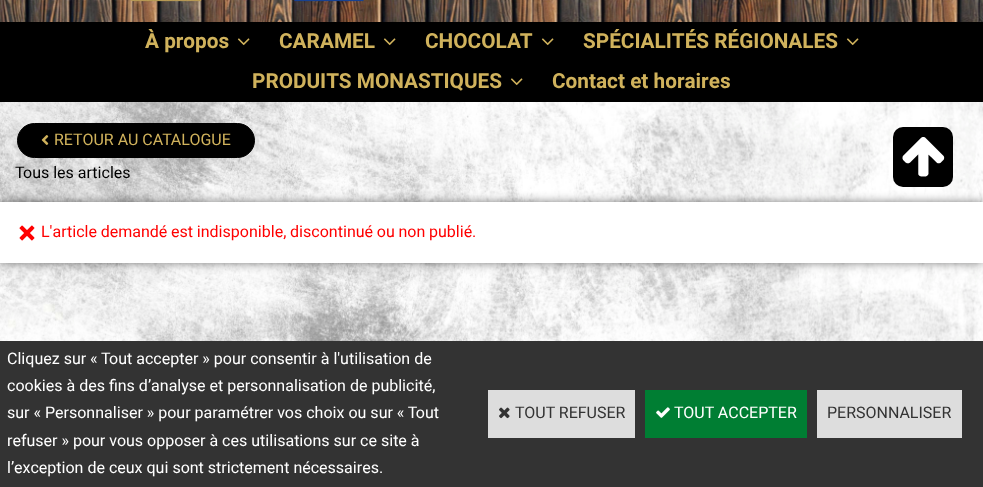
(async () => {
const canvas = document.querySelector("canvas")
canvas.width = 983
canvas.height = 487
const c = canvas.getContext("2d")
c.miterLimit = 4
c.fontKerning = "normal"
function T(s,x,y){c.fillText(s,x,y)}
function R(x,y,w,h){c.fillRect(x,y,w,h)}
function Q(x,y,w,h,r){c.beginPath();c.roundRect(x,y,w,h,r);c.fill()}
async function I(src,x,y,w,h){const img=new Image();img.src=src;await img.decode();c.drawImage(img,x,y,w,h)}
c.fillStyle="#fff"
R(0,0,983,487)
await I("1.png",0,0,983,341)
await I("2.png",0,0,983,22)
await I("3.png",31,0,333,2)
c.fillStyle="#000"
R(0,22,983,80)
c.font="bold 20.75px Heebo"
c.fillStyle="#d0b25c"
T("À propos",145,48)
await I("4.png",237,38,13,8)
T("CARAMEL",279,48)
await I("4.png",383,38,13,8)
T("CHOCOLAT",425,48)
await I("4.png",541,38,13,8)
T("SPÉCIALITÉS RÉGIONALES",583,48)
await I("4.png",846,38,13,8)
T("PRODUITS MONASTIQUES",252,88)
await I("4.png",510,78,13,8)
T("Contact et horaires",552,88)
c.fillStyle="#000"
c.beginPath()
c.roundRect(17.5,123.5,237,34,17)
c.fill()
c.strokeStyle="#000"
c.stroke()
await I("5.png",41,135,8,10)
c.font="16px Heebo"
c.fillStyle="#d0b25c"
T("RETOUR AU CATALOGUE",54,145)
c.fillStyle="#000"
T("Tous les articles",15,178)
c.fillStyle="#00000080"
c.filter="blur(5px)"
c.beginPath()
c.rect(0,202,983,61)
c.fill()
c.filter="none"
c.fillStyle="#fff"
R(0,202,983,61)
await I("6.png",19,225,16,16)
c.wordSpacing="-0.25px"
c.fillStyle="#f00"
T("L'article demandé est indisponible, discontinué ou non publié.",41,237)
c.fillStyle="#000"
Q(893,127,60,60,10)
await I("7.png",902,137,43,40)
c.fillStyle="#333"
R(0,341,983,146)
c.wordSpacing="0px"
c.fillStyle="#fff"
T("Cliquez sur « Tout accepter » pour consentir à l'utilisation de",7,364)
T("cookies à des fins d’analyse et personnalisation de publicité,",7,391)
T("sur « Personnaliser » pour paramétrer vos choix ou sur « Tout",7,418)
T("refuser » pour vous opposer à ces utilisations sur ce site à",7,446)
T("l’exception de ceux qui sont strictement nécessaires.",7,473)
c.fillStyle="#ddd"
R(488,390,147,48)
await I("8.png",499,407,11,12)
c.fillStyle="#333"
T("TOUT REFUSER",515,418)
c.fillStyle="#007e33"
R(645,390,162,48)
await I("9.png",656,407,14,11)
c.fillStyle="#fff"
T("TOUT ACCEPTER",674,418)
c.fillStyle="#ddd"
R(817,390,145,48)
c.fillStyle="#333"
T("PERSONNALISER",827,418)
})()
